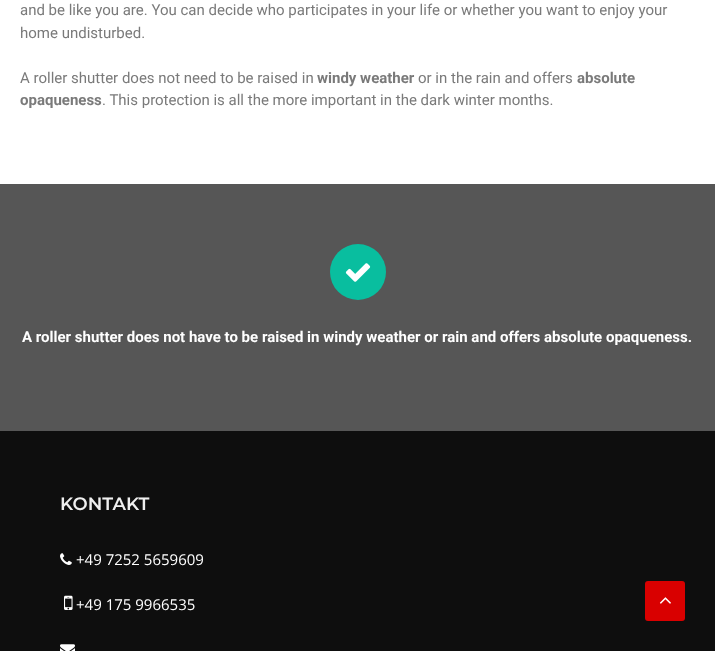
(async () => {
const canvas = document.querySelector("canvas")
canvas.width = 715
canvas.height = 651
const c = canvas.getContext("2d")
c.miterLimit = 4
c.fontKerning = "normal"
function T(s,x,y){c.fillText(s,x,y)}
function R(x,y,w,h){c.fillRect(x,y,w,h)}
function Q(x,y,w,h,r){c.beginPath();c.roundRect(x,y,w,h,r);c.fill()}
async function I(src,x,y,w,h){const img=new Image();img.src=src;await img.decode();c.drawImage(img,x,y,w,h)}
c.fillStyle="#0e0e0e"
R(0,0,715,651)
c.fillStyle="#fff"
R(0,0,715,184)
c.font="15px Roboto"
c.fillStyle="#7a7a7a"
T("and be like you are. You can decide who participates in your life or whether you want to enjoy your",20,15)
T("home undisturbed.",20,38)
T("A roller shutter does not need to be raised in",20,83)
c.font="bold 15px Roboto"
T("windy weather",317,83)
c.font="15px Roboto"
T("or in the rain and offers",418,83)
c.font="bold 15px Roboto"
T("absolute",577,83)
T("opaqueness",20,105)
c.font="15px Roboto"
T(". This protection is all the more important in the dark winter months.",102,105)
c.fillStyle="#565656"
R(0,184,715,247)
c.fillStyle="#09be9f"
c.beginPath()
c.arc(358,272,28,0,7)
c.fill()
await I("1.png",345,263,26,19)
c.font="bold 15px Roboto"
c.fillStyle="#fff"
T("A roller shutter does not have to be raised in windy weather or rain and offers absolute opaqueness.",22,342)
c.font="600 18px Montserrat"
c.fillStyle="#efefef"
T("KONTAKT",60,510)
await I("2.png",60,553,12,12)
c.font="15px Open Sans"
c.fillStyle="#fff"
T("+49 7252 5659609",76,565)
await I("3.png",64,595,9,15)
T("+49 175 9966535",76,610)
await I("4.png",60,644,15,7)
c.fillStyle="#d90000"
Q(645,581,40,40,3)
await I("5.png",659,597,12,7)
})()
